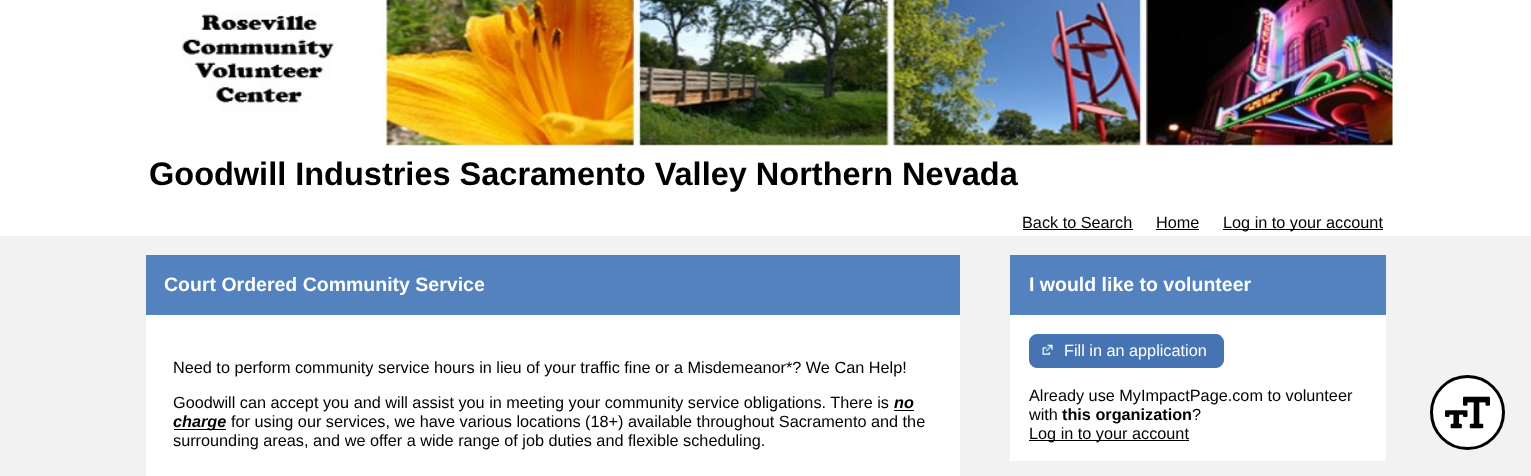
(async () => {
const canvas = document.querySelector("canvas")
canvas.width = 1531
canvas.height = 476
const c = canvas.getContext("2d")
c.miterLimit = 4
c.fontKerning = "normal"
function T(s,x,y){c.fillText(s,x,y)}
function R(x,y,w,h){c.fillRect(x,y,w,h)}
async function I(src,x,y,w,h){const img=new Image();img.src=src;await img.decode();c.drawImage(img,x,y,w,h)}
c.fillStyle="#f2f2f2"
R(0,0,1531,476)
c.fillStyle="#fff"
R(0,0,1531,236)
await I("1.png",181,0,1212,146)
c.font="bold 32.5px Liberation Sans"
c.fillStyle="#000"
T("Goodwill Industries Sacramento Valley Northern Nevada",149,185)
c.font="16.25px Liberation Sans"
T("Back to Search",1022,228)
R(1023,229,110,1)
T("Home",1156,228)
R(1156,229,43,1)
R(1223,229,160,1)
T("Log in to your account",1223,228)
c.fillStyle="#5482be"
R(146,255,814,60)
c.font="bold 19.5px Liberation Sans"
c.fillStyle="#fff"
T("Court Ordered Community Service",164,291)
R(146,315,814,161)
c.font="16.25px Liberation Sans"
c.fillStyle="#000"
T("Need to perform community service hours in lieu of your traffic fine or a Misdemeanor*? We Can Help!",173,373)
T("Goodwill can accept you and will assist you in meeting your community service obligations. There is",173,408)
c.font="italic bold 16.25px Liberation Sans"
T("no",894,408)
R(894,410,20,1)
R(174,429,52,1)
T("charge",173,427)
c.font="16.25px Liberation Sans"
T("for using our services, we have various locations (18+) available throughout Sacramento and the",231,427)
T("surrounding areas, and we offer a wide range of job duties and flexible scheduling.",173,446)
c.fillStyle="#5482be"
R(1010,255,376,60)
c.font="bold 19.5px Liberation Sans"
c.fillStyle="#fff"
T("I would like to volunteer",1029,291)
R(1010,315,376,146)
c.fillStyle="#4674b2"
c.beginPath()
c.roundRect(1029.5,334.5,194,33,7.5)
c.fill()
c.strokeStyle="#4674b2"
c.stroke()
await I("2.png",1042,344,11,11)
c.font="16.25px Liberation Sans"
c.fillStyle="#fff"
T("Fill in an application",1064,356)
c.fillStyle="#000"
T("Already use MyImpactPage.com to volunteer",1029,401)
T("with",1029,420)
c.font="bold 16.25px Liberation Sans"
T("this organization",1062,420)
c.font="16.25px Liberation Sans"
T("?",1192,420)
R(1029,440,160,1)
T("Log in to your account",1029,439)
c.fillStyle="#fff"
c.beginPath()
c.arc(1467.5,412.5,36,0,7)
c.fill()
c.strokeStyle="#000"
c.lineWidth=3
c.stroke()
await I("3.png",1445,396,45,33)
})()
